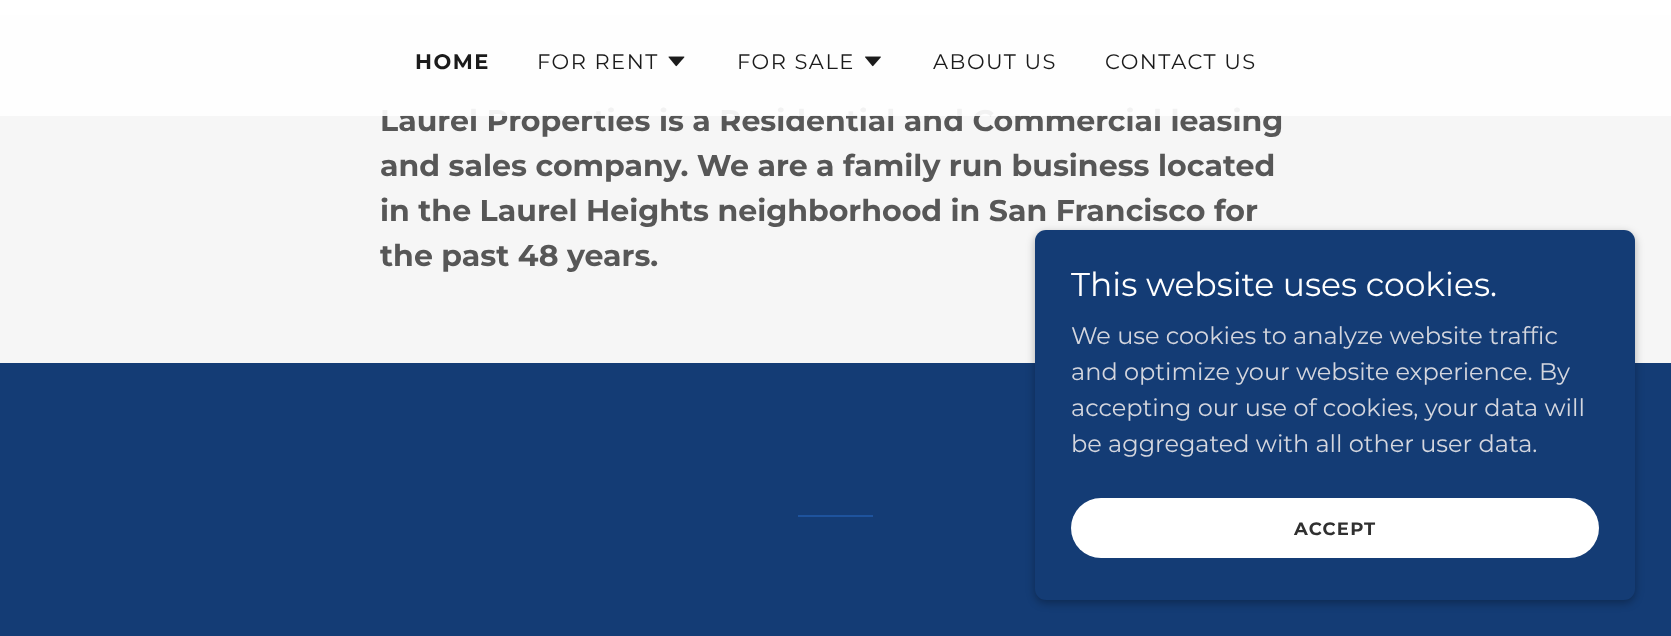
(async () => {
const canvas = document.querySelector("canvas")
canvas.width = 1671
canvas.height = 636
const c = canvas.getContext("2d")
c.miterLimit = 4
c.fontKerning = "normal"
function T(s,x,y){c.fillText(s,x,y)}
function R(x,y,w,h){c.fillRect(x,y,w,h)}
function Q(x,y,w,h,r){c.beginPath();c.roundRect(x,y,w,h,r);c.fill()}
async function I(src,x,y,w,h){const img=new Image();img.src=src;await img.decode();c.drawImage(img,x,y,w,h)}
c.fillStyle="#143c75"
R(0,0,1671,636)
c.fillStyle="#fff"
R(0,0,1671,15)
c.fillStyle="#f6f6f6"
R(0,15,1671,348)
c.font="bold 30px Montserrat"
c.fillStyle="#575757"
T("Laurel Properties is a Residential and Commercial leasing",380,131)
c.fillStyle="#ffffffe6"
R(0,15,1671,101)
c.fillStyle="#ffffff40"
R(382,108,899,8)
c.letterSpacing="1.5px"
c.font="bold 21px Montserrat"
c.fillStyle="#1b1b1b"
T("HOME",415,69)
c.font="21px Montserrat"
T("FOR RENT",537,69)
await I("1.png",668,56,17,11)
T("FOR SALE",737,69)
await I("2.png",865,56,16,11)
T("ABOUT US",933,69)
T("CONTACT US",1105,69)
c.letterSpacing="0px"
c.font="bold 30px Montserrat"
c.fillStyle="#575757"
T("and sales company. We are a family run business located",380,176)
T("in the Laurel Heights neighborhood in San Francisco for",380,221)
T("the past 48 years.",380,266)
c.fillStyle="#1e539d"
R(798,515,75,2)
c.fillStyle="#0000004d"
c.filter="blur(4.5px)"
c.beginPath()
c.roundRect(1035,233,600,370,11)
c.fill()
c.filter="none"
c.fillStyle="#143c75"
Q(1035,230,600,370,11)
c.font="33px Montserrat"
c.fillStyle="#fff"
T("This website uses cookies.",1071,296)
c.font="24px Montserrat"
c.fillStyle="#d4d6de"
T("We use cookies to analyze website traffic",1071,344)
T("and optimize your website experience. By",1071,380)
T("accepting our use of cookies, your data will",1071,416)
T("be aggregated with all other user data.",1071,452)
c.fillStyle="#fff"
Q(1071,498,528,60,30)
c.letterSpacing="1.25px"
c.font="bold 18px Montserrat"
c.fillStyle="#303030"
T("ACCEPT",1294,535)
})()
